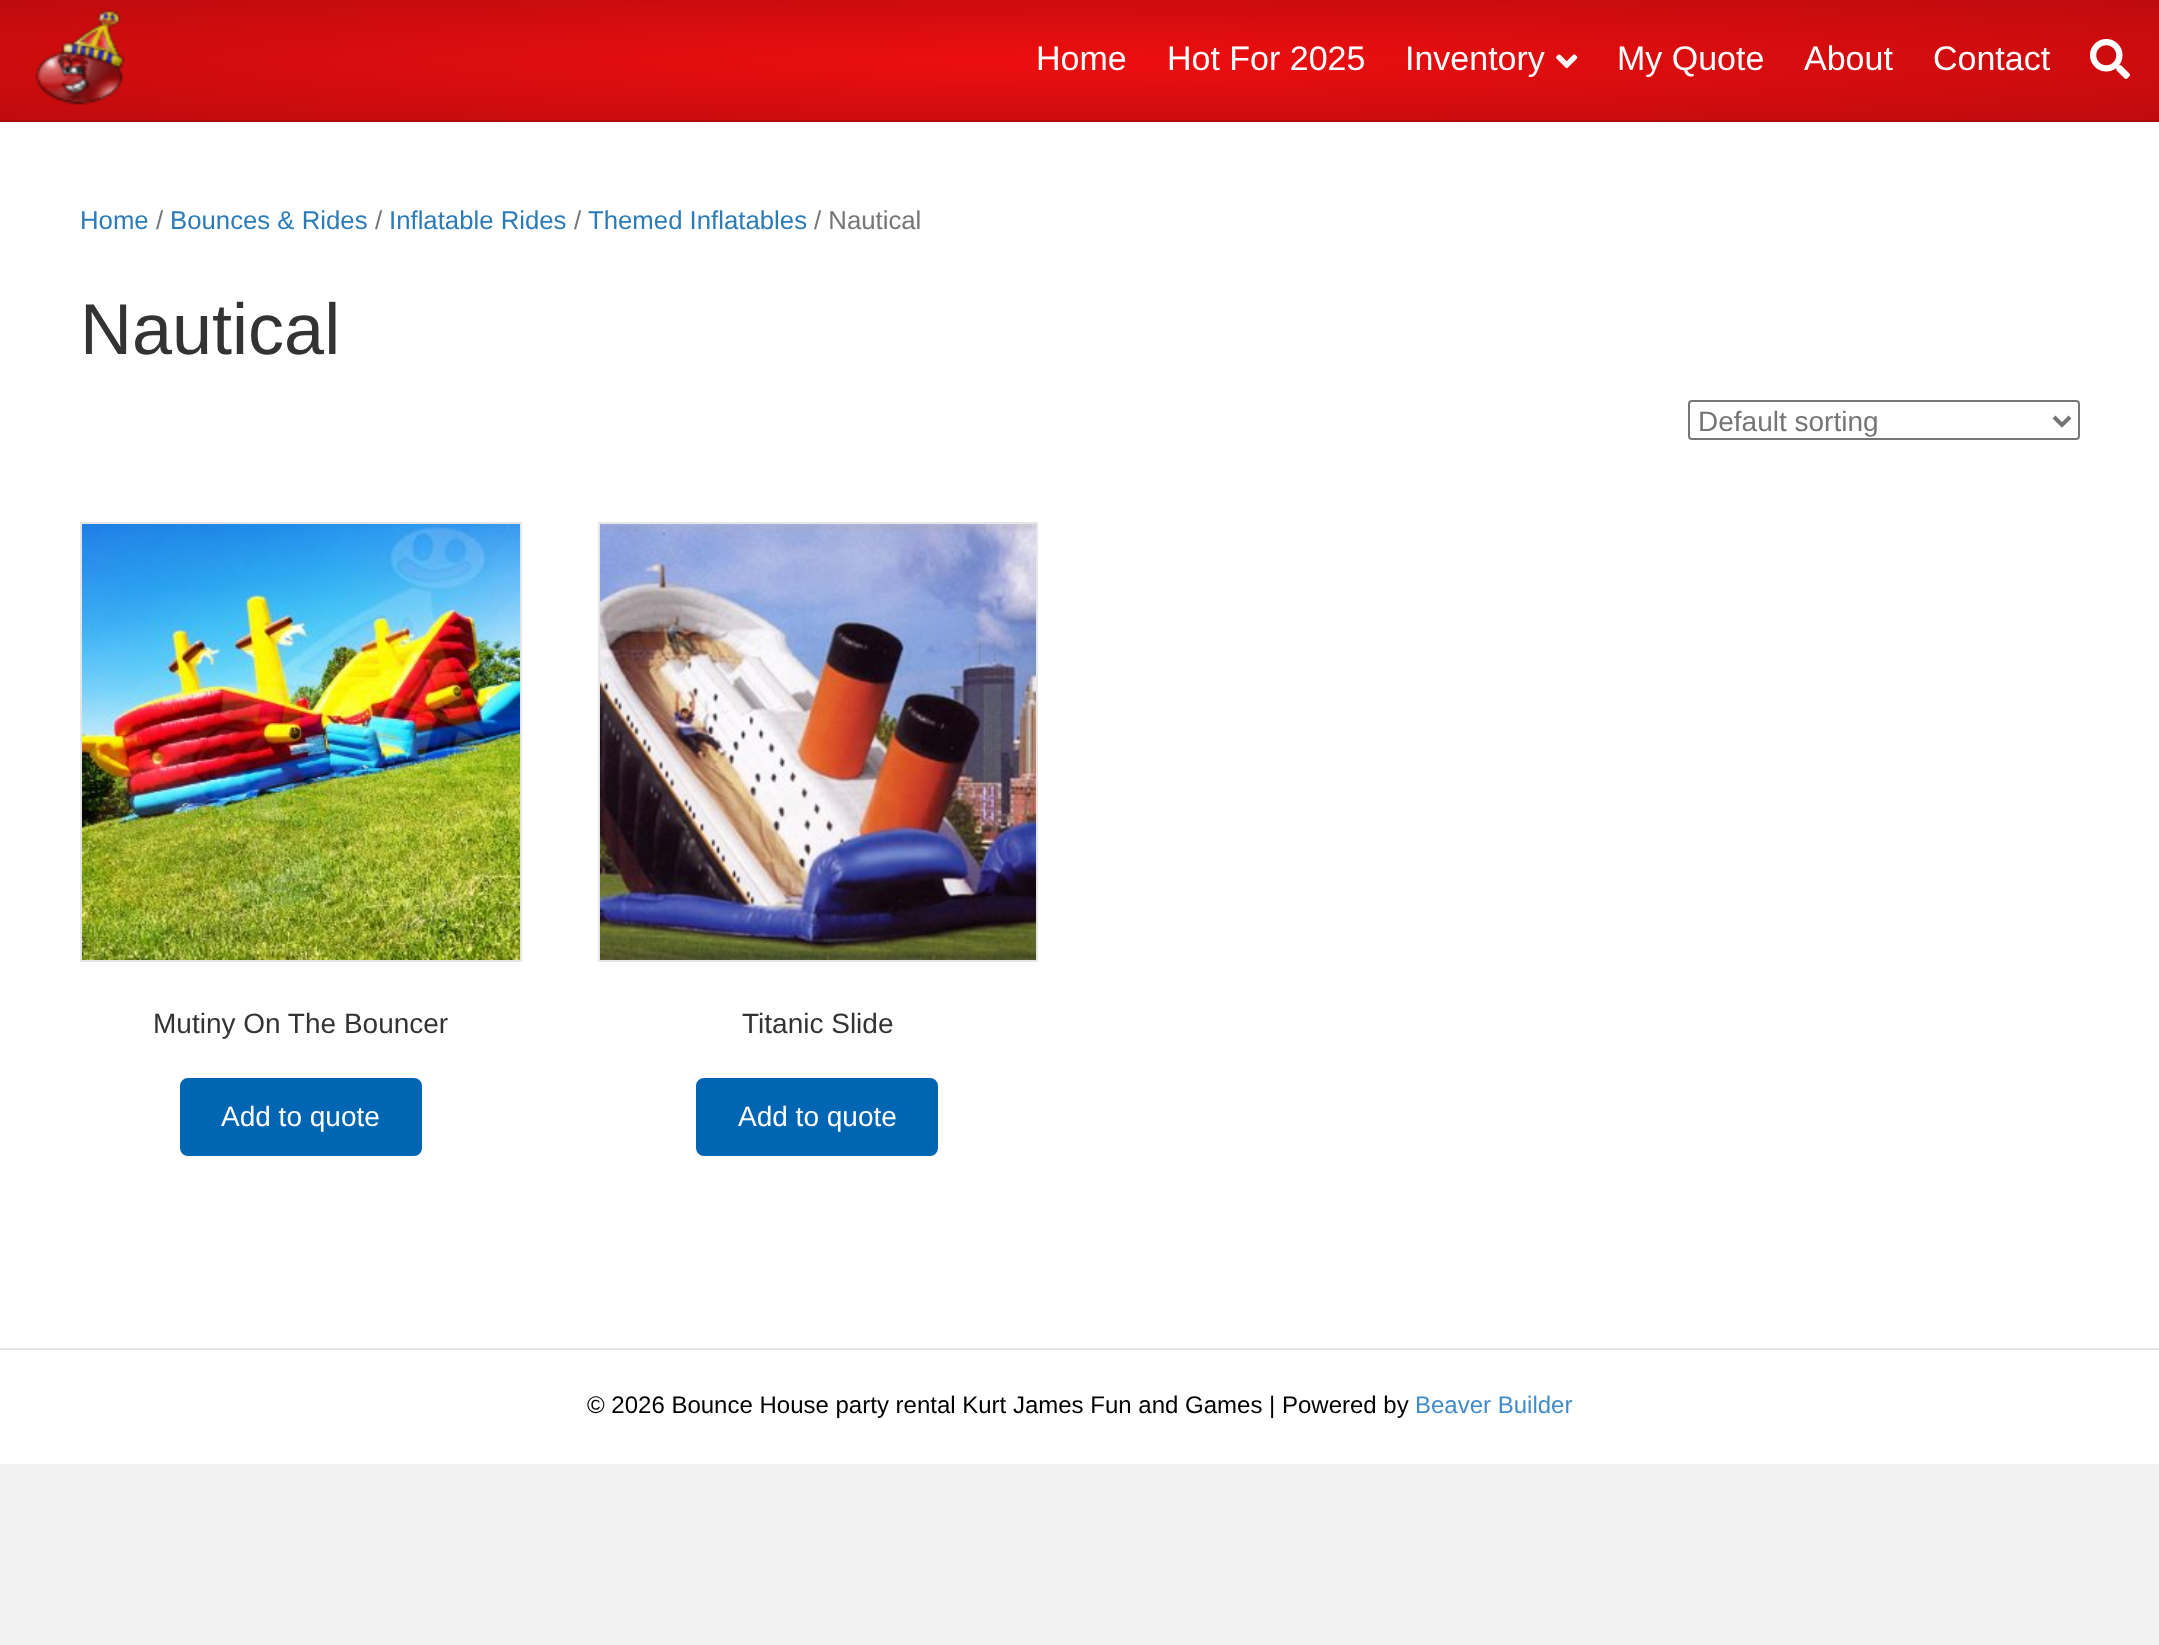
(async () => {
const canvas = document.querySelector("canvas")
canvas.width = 2159
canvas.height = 1645
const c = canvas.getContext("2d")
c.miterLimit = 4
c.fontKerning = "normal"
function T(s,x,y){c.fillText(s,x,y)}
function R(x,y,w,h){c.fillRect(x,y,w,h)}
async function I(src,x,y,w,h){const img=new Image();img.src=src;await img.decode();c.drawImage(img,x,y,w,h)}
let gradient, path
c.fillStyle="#f2f2f2"
R(0,0,2159,1645)
gradient = c.createRadialGradient(1080,1083.1,0,1080,1083.1,1527)
gradient.addColorStop(0,"#ee0e10")
gradient.addColorStop(1,"#be0b0d")
c.fillStyle = gradient
c.beginPath()
c.rect(0,0,2159,120)
c.save()
c.clip()
c.scale(1,86 / 1527)
c.fillRect(0,0,2159,29209)
c.restore()
gradient = c.createRadialGradient(1080,1083.1,0,1080,1083.1,1527)
gradient.addColorStop(0,"#cf0c0e")
gradient.addColorStop(1,"#a50a0b")
c.fillStyle = gradient
c.beginPath()
c.rect(0,120,2159,2)
c.save()
c.clip()
c.scale(1,86 / 1527)
c.fillRect(0,0,2159,29209)
c.restore()
await I("1.png",35,10,90,95)
c.font="34px Liberation Sans"
c.fillStyle="#fff"
T("Home",1036,70)
T("Hot For 2025",1167,70)
T("Inventory",1405,70)
await I("2.png",1556,54,22,15)
T("My Quote",1617,70)
T("About",1804,70)
T("Contact",1933,70)
await I("3.png",2090,39,40,40)
R(0,122,2159,1226)
c.font="25.75px Liberation Sans"
c.fillStyle="#2b7bb9"
T("Home",80,229)
c.fillStyle="#757575"
T("/",156,229)
c.fillStyle="#2b7bb9"
T("Bounces & Rides",170,229)
c.fillStyle="#757575"
T("/",375,229)
c.fillStyle="#2b7bb9"
T("Inflatable Rides",389,229)
c.fillStyle="#757575"
T("/",574,229)
c.fillStyle="#2b7bb9"
T("Themed Inflatables",588,229)
c.fillStyle="#757575"
T("/ Nautical",814,229)
c.font="72px Liberation Sans"
c.fillStyle="#333"
T("Nautical",80,354)
c.beginPath()
c.roundRect(1689,401,390,38,3)
c.strokeStyle="#767676"
c.lineWidth=2
c.stroke()
path = new Path2D("M2054 417l8 8l8-8")
c.strokeStyle="#757575"
c.lineWidth=4
c.stroke(path)
c.font="28px Liberation Sans"
c.fillStyle="#757575"
T("Default sorting",1698,431)
c.strokeStyle="#e6e6e6"
c.lineWidth=2
c.strokeRect(81,523,440,438)
await I("4.png",82,524,438,436)
c.fillStyle="#333"
T("Mutiny On The Bouncer",153,1033)
c.fillStyle="#0066b4"
c.beginPath()
c.roundRect(181,1079,240,76,7)
c.fill()
c.strokeStyle="#0066b4"
c.stroke()
c.fillStyle="#fff"
T("Add to quote",221,1126)
c.strokeStyle="#e6e6e6"
c.strokeRect(599,523,438,438)
await I("5.png",600,524,436,436)
c.fillStyle="#333"
T("Titanic Slide",742,1033)
c.fillStyle="#0066b4"
c.beginPath()
c.roundRect(697,1079,240,76,7)
c.fill()
c.strokeStyle="#0066b4"
c.stroke()
c.fillStyle="#fff"
T("Add to quote",738,1126)
R(0,1350,2159,114)
c.fillStyle="#e6e6e6"
R(0,1348,2159,2)
c.font="24px Liberation Sans"
c.fillStyle="#000"
T("© 2026 Bounce House party rental Kurt James Fun and Games | Powered by",587,1413)
c.fillStyle="#428bca"
T("Beaver Builder",1415,1413)
})()
